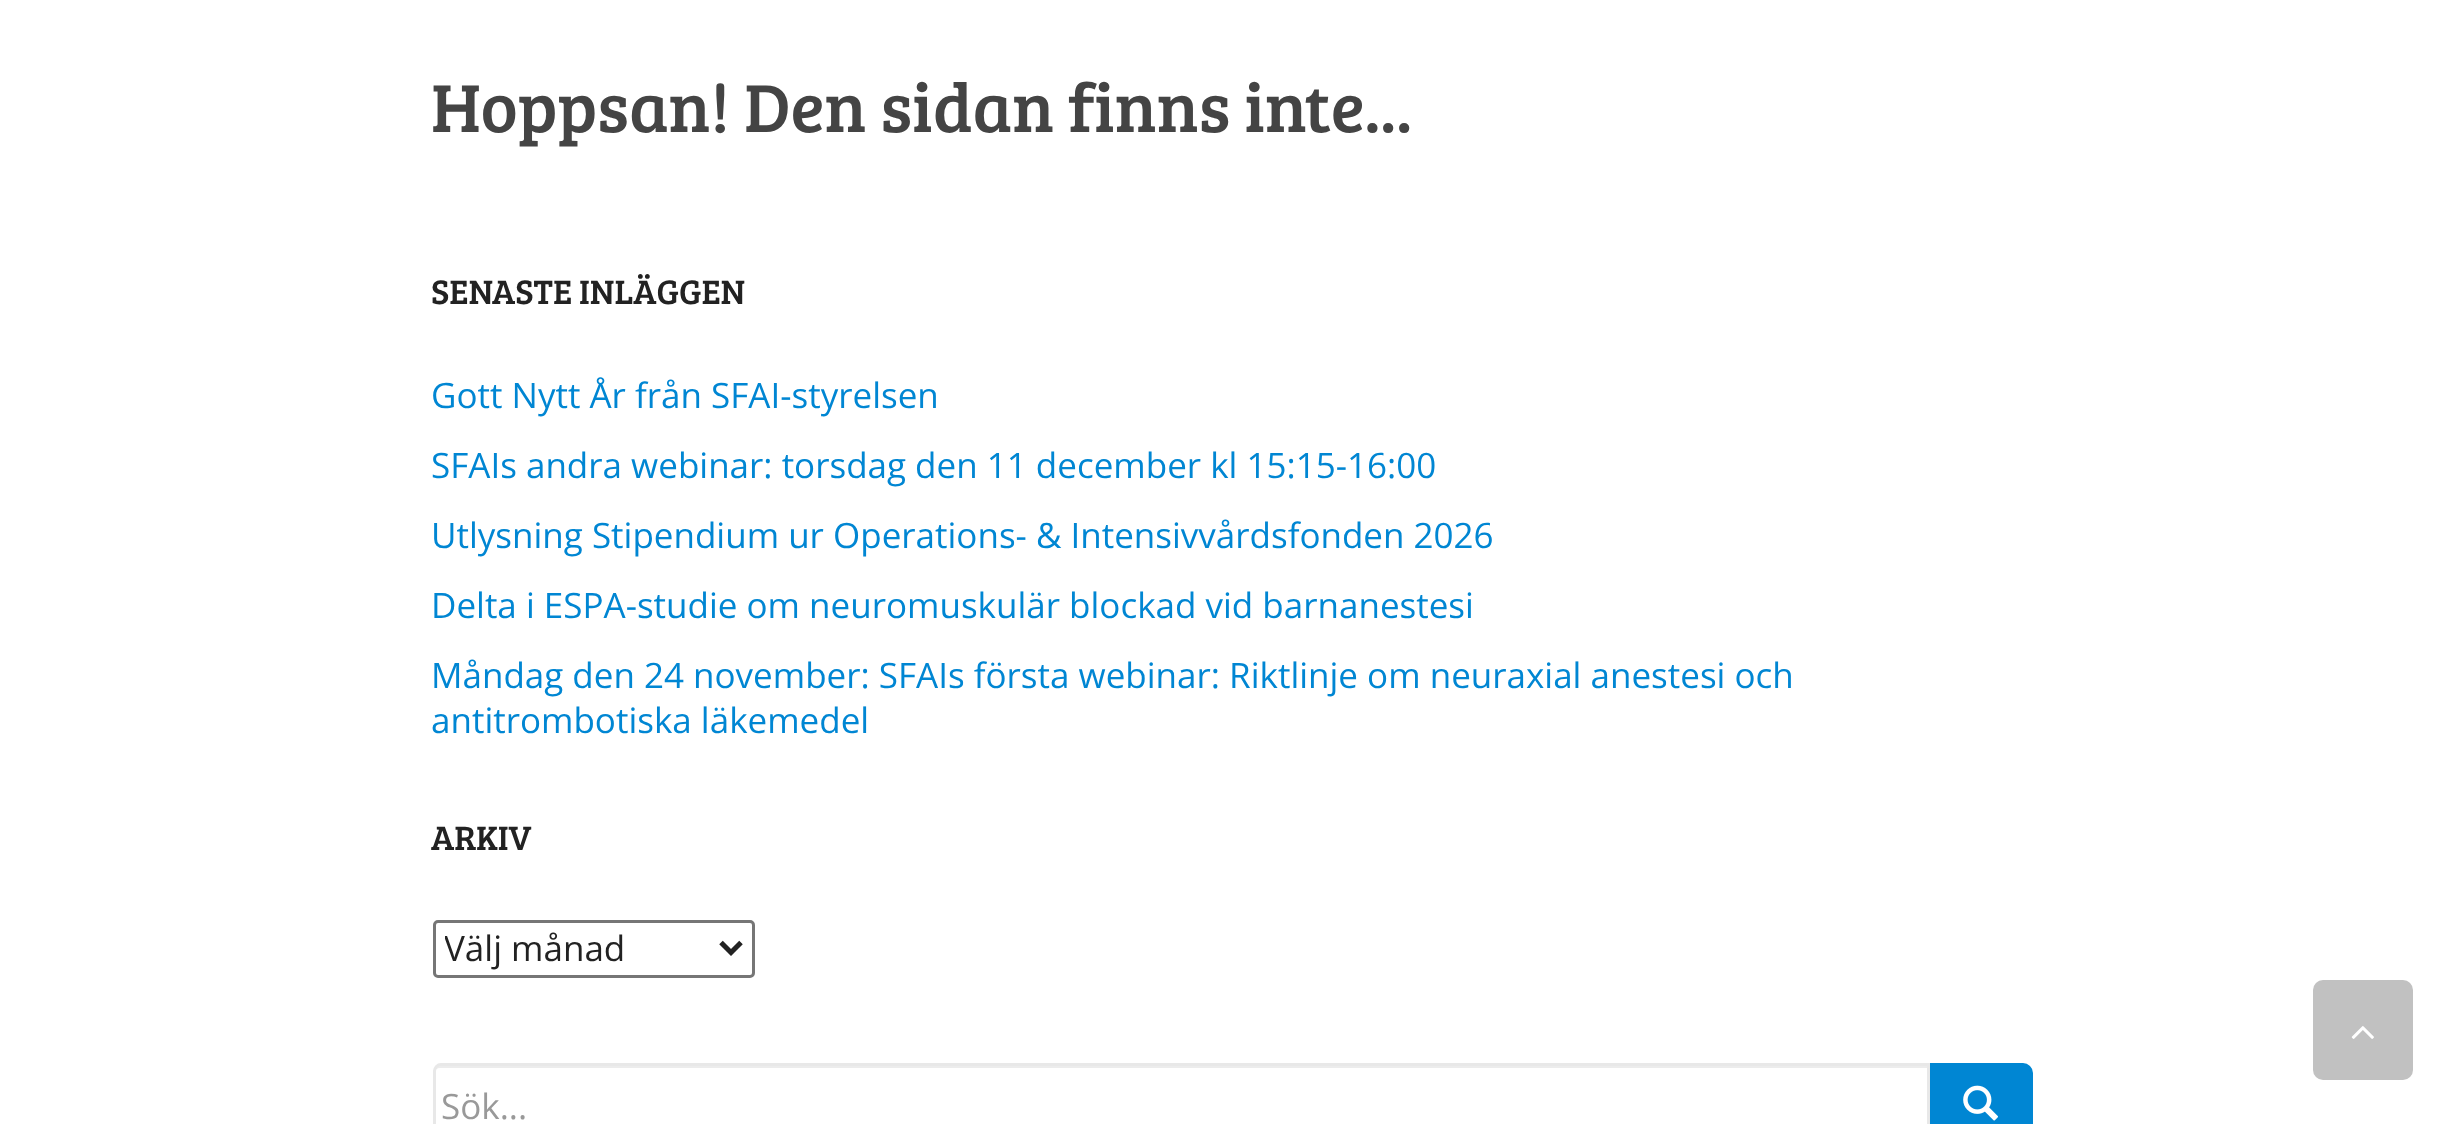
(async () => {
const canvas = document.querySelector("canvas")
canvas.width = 2461
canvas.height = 1124
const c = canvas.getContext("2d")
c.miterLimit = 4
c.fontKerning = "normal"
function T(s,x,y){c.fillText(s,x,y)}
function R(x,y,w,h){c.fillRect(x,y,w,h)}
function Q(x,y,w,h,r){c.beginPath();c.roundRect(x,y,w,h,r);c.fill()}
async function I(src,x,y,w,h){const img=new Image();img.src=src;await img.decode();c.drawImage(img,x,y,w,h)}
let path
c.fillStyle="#fff"
R(0,0,2461,1124)
c.font="70px Bree Serif"
c.fillStyle="#444"
T("Hoppsan! Den sidan finns inte...",431,132)
c.font="35px Bree Serif"
c.fillStyle="#222"
T("SENASTE INLÄGGEN",431,304)
c.font="35px Open Sans"
c.fillStyle="#0086d3"
T("Gott Nytt År från SFAI-styrelsen",431,408)
T("SFAIs andra webinar: torsdag den 11 december kl 15:15-16:00",431,478)
T("Utlysning Stipendium ur Operations- & Intensivvårdsfonden 2026",431,548)
T("Delta i ESPA-studie om neuromuskulär blockad vid barnanestesi",431,618)
T("Måndag den 24 november: SFAIs första webinar: Riktlinje om neuraxial anestesi och",431,688)
T("antitrombotiska läkemedel",431,733)
c.font="35px Bree Serif"
c.fillStyle="#222"
T("ARKIV",431,850)
c.beginPath()
c.roundRect(434.5,921.5,319,55,3.5)
c.strokeStyle="#767676"
c.lineWidth=3
c.stroke()
path = new Path2D("M721 942.5l10 10l10-10")
c.strokeStyle="#222"
c.lineWidth=5
c.stroke(path)
c.save()
c.beginPath()
c.rect(445,923,268,52)
c.clip()
c.font="35px Open Sans"
T("Välj månad",444,961)
c.restore()
c.fillStyle="#ececec"
path = new Path2D("M440 1068h1488v-3h-1488c-4 0-5 4-5 7c0-2 2-4 5-4z")
c.fill(path)
path = new Path2D("M441 1064.5h1487.5v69h-1487.5c-3.5 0-6.5-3-6.5-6.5v-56c0-3.5 3-6.5 6.5-6.5z")
c.strokeStyle="#e8e8e8"
c.lineWidth=3
c.stroke(path)
c.font="35px Open Sans"
c.fillStyle="#999"
T("Sök...",441,1119)
c.fillStyle="#0086d3"
path = new Path2D("M1931.5 1064.5h91.5c4.5 0 8.5 4 8.5 8.5v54c0 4.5-4 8.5-8.5 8.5h-91.5z")
c.fill(path)
c.strokeStyle="#0086d3"
c.stroke(path)
await I("1.png",1963,1085,35,36)
c.fillStyle="#c1c1c1"
Q(2313,980,100,100,10)
await I("2.png",2351,1026,23,13)
})()
